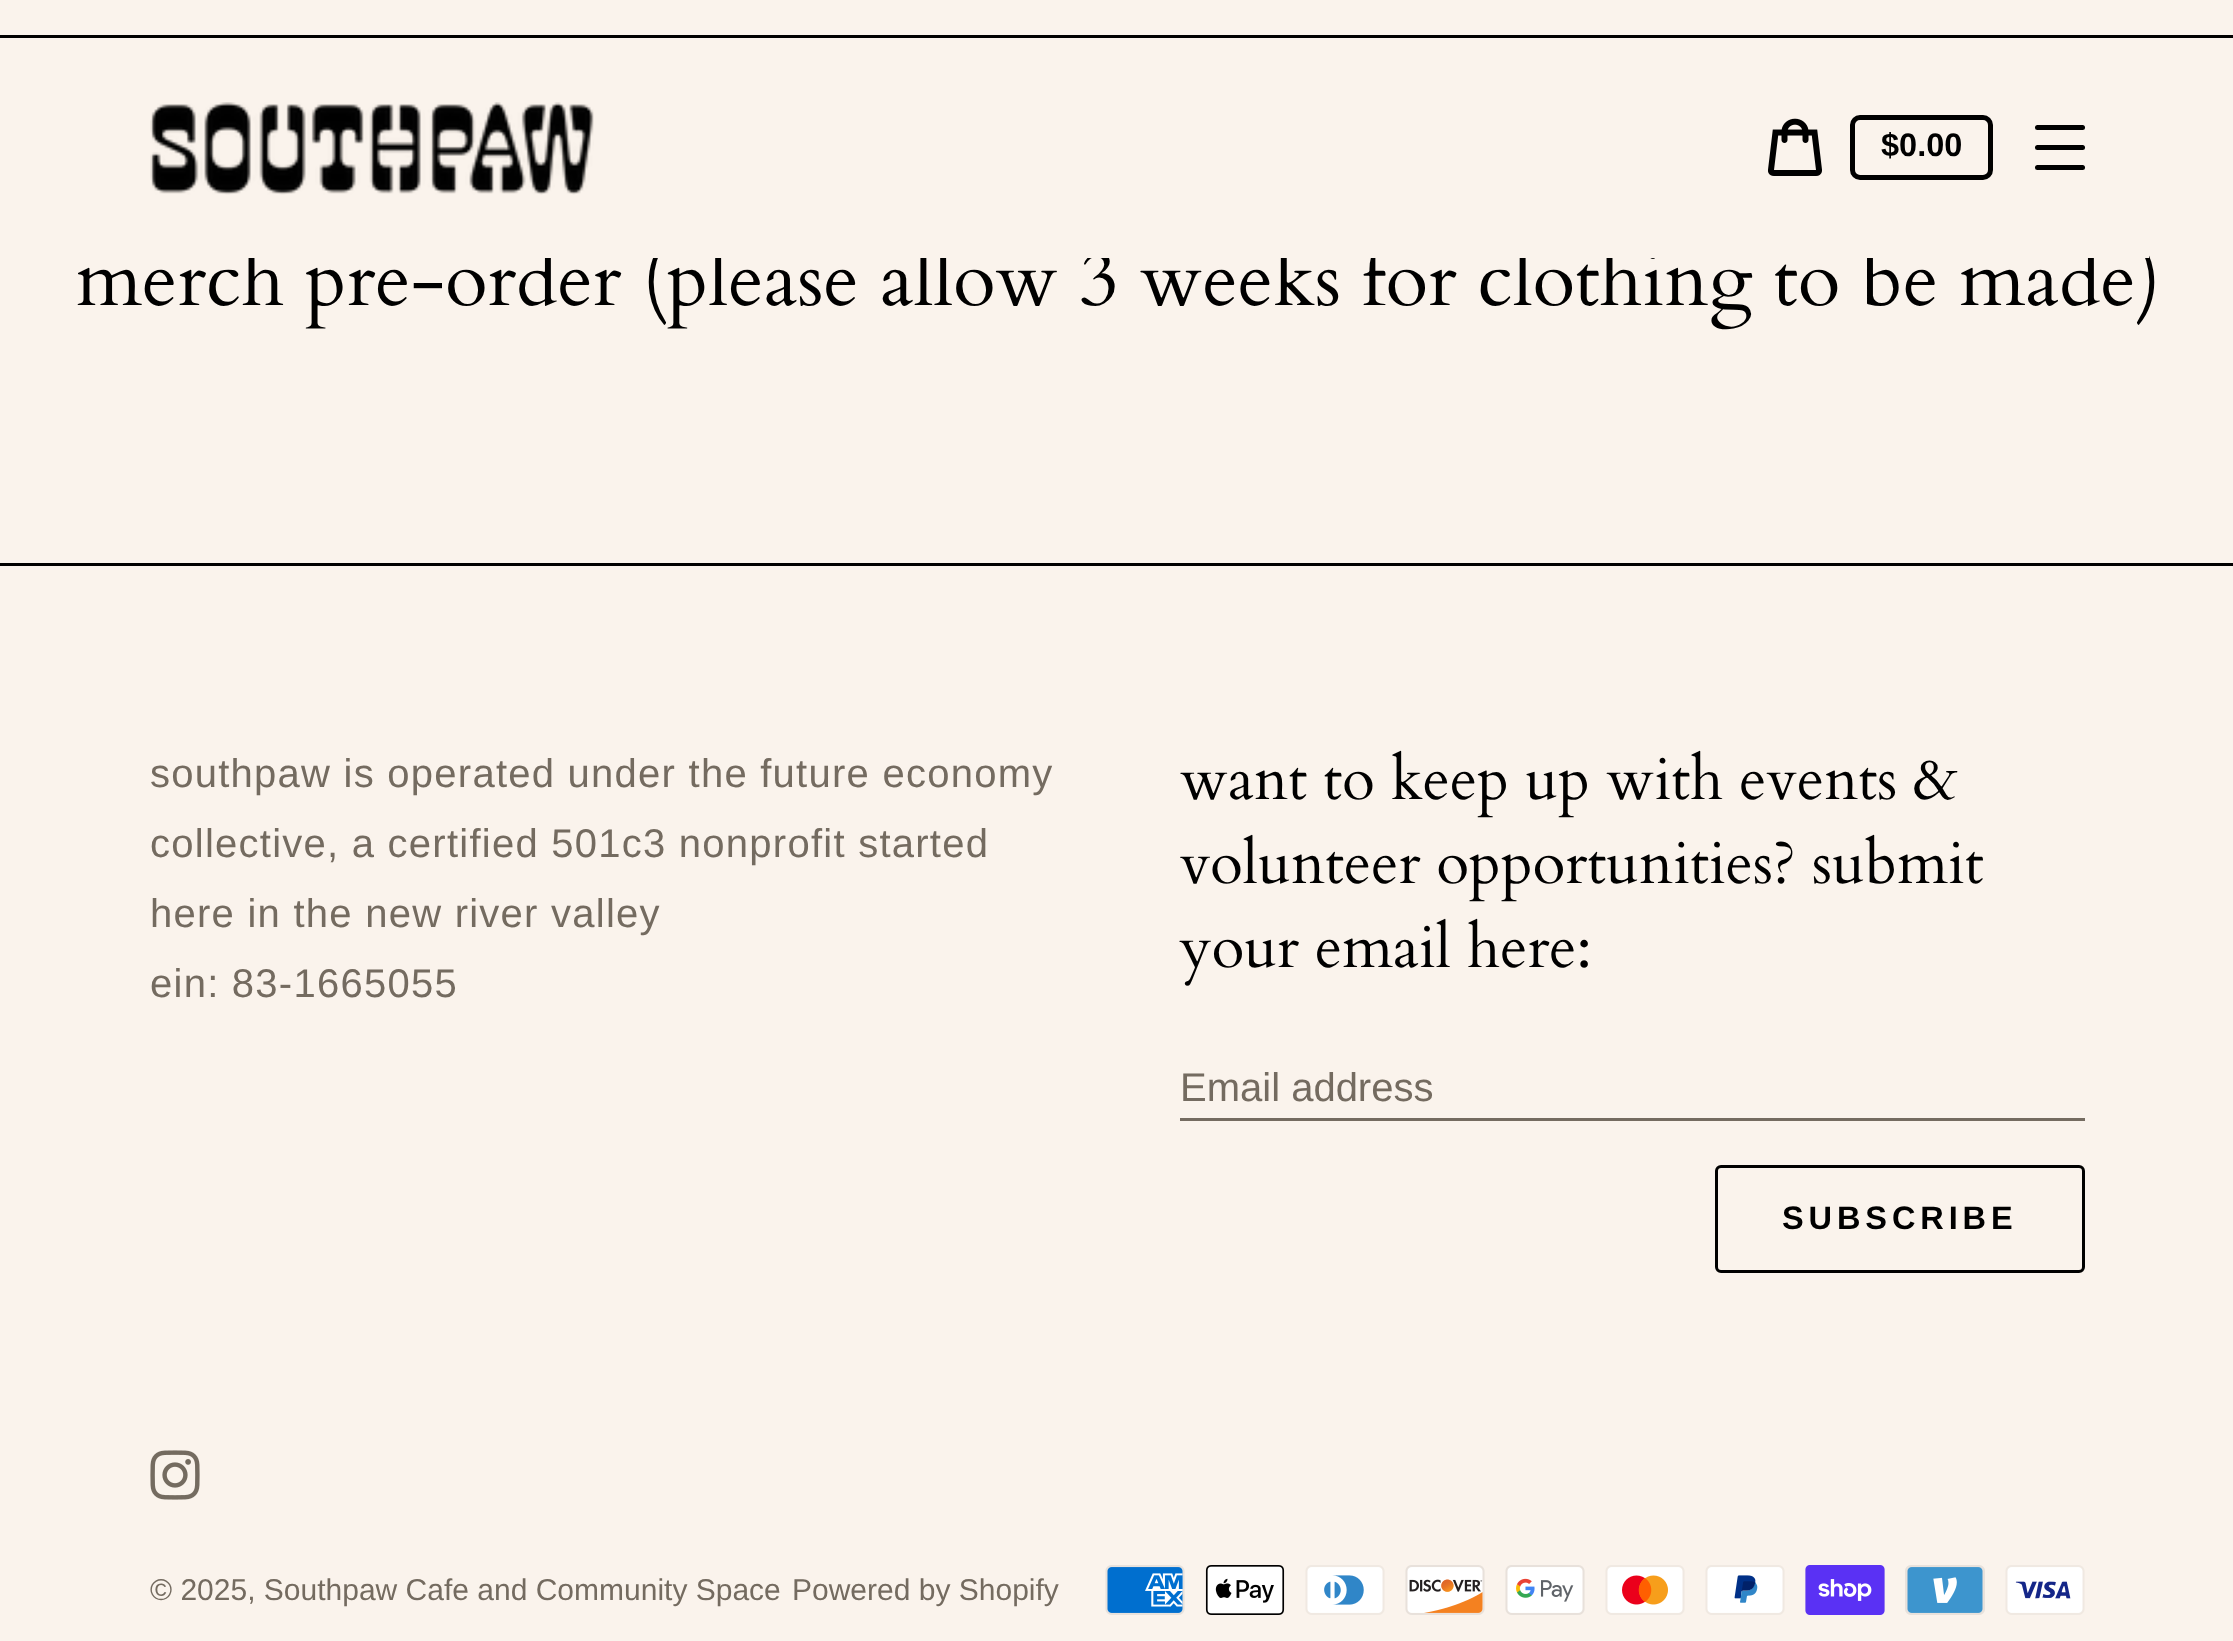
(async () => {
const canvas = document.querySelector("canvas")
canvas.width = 2233
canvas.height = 1641
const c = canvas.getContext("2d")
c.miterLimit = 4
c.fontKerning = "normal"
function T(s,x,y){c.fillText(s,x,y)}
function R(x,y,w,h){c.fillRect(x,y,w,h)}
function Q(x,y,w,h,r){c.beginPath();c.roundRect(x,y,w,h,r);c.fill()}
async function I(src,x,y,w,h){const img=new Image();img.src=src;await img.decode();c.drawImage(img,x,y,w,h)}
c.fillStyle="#faf3ec"
R(0,0,2233,1641)
c.fillStyle="#000"
R(0,35,2233,3)
c.font="78px Cardo"
T("merch pre-order (please allow 3 weeks for clothing to be made)",76,305)
c.fillStyle="#faf3ec"
R(242,239,1907,19)
await I("1.png",150,102,444,93)
await I("2.png",1768,118,54,58)
c.beginPath()
c.roundRect(1852.5,117.5,138,60,7.5)
c.strokeStyle="#000"
c.lineWidth=5
c.stroke()
c.font="bold 32.5px Liberation Sans"
c.fillStyle="#000"
T("$0.00",1881,156)
Q(2035,145,50,5,2.5)
Q(2035,125,50,5,2.5)
Q(2035,165,50,5,2.5)
R(0,563,2233,3)
c.letterSpacing="1.25px"
c.font="40px Liberation Sans"
c.fillStyle="#746b60"
T("southpaw is operated under the future economy",150,787)
T("collective, a certified 501c3 nonprofit started",150,857)
T("here in the new river valley",150,927)
T("ein: 83-1665055",150,997)
c.letterSpacing="0px"
c.font="60px Cardo"
c.fillStyle="#000"
T("want to keep up with events &",1180,799)
T("volunteer opportunities? submit",1180,883)
T("your email here:",1180,967)
c.font="40px Liberation Sans"
c.fillStyle="#746b60"
T("Email address",1180,1101)
R(1180,1118,905,3)
c.beginPath()
c.roundRect(1716.5,1166.5,367,105,4.5)
c.lineWidth=3
c.stroke()
c.letterSpacing="4.9px"
c.font="bold 32.5px Liberation Sans"
c.fillStyle="#000"
T("SUBSCRIBE",1782,1229)
await I("3.png",150,1450,50,50)
c.letterSpacing="0px"
c.font="30px Liberation Sans"
c.fillStyle="#746b60"
T("© 2025, Southpaw Cafe and Community Space",150,1600)
T("Powered by Shopify",792,1600)
await I("4.png",1105,1565,80,50)
await I("5.png",1205,1565,80,50)
await I("6.png",1305,1565,80,50)
await I("7.png",1405,1565,80,50)
await I("8.png",1505,1565,80,50)
await I("9.png",1605,1565,80,50)
await I("10.png",1705,1565,80,50)
await I("11.png",1805,1565,80,50)
await I("12.png",1905,1565,80,50)
await I("13.png",2005,1565,80,50)
})()
